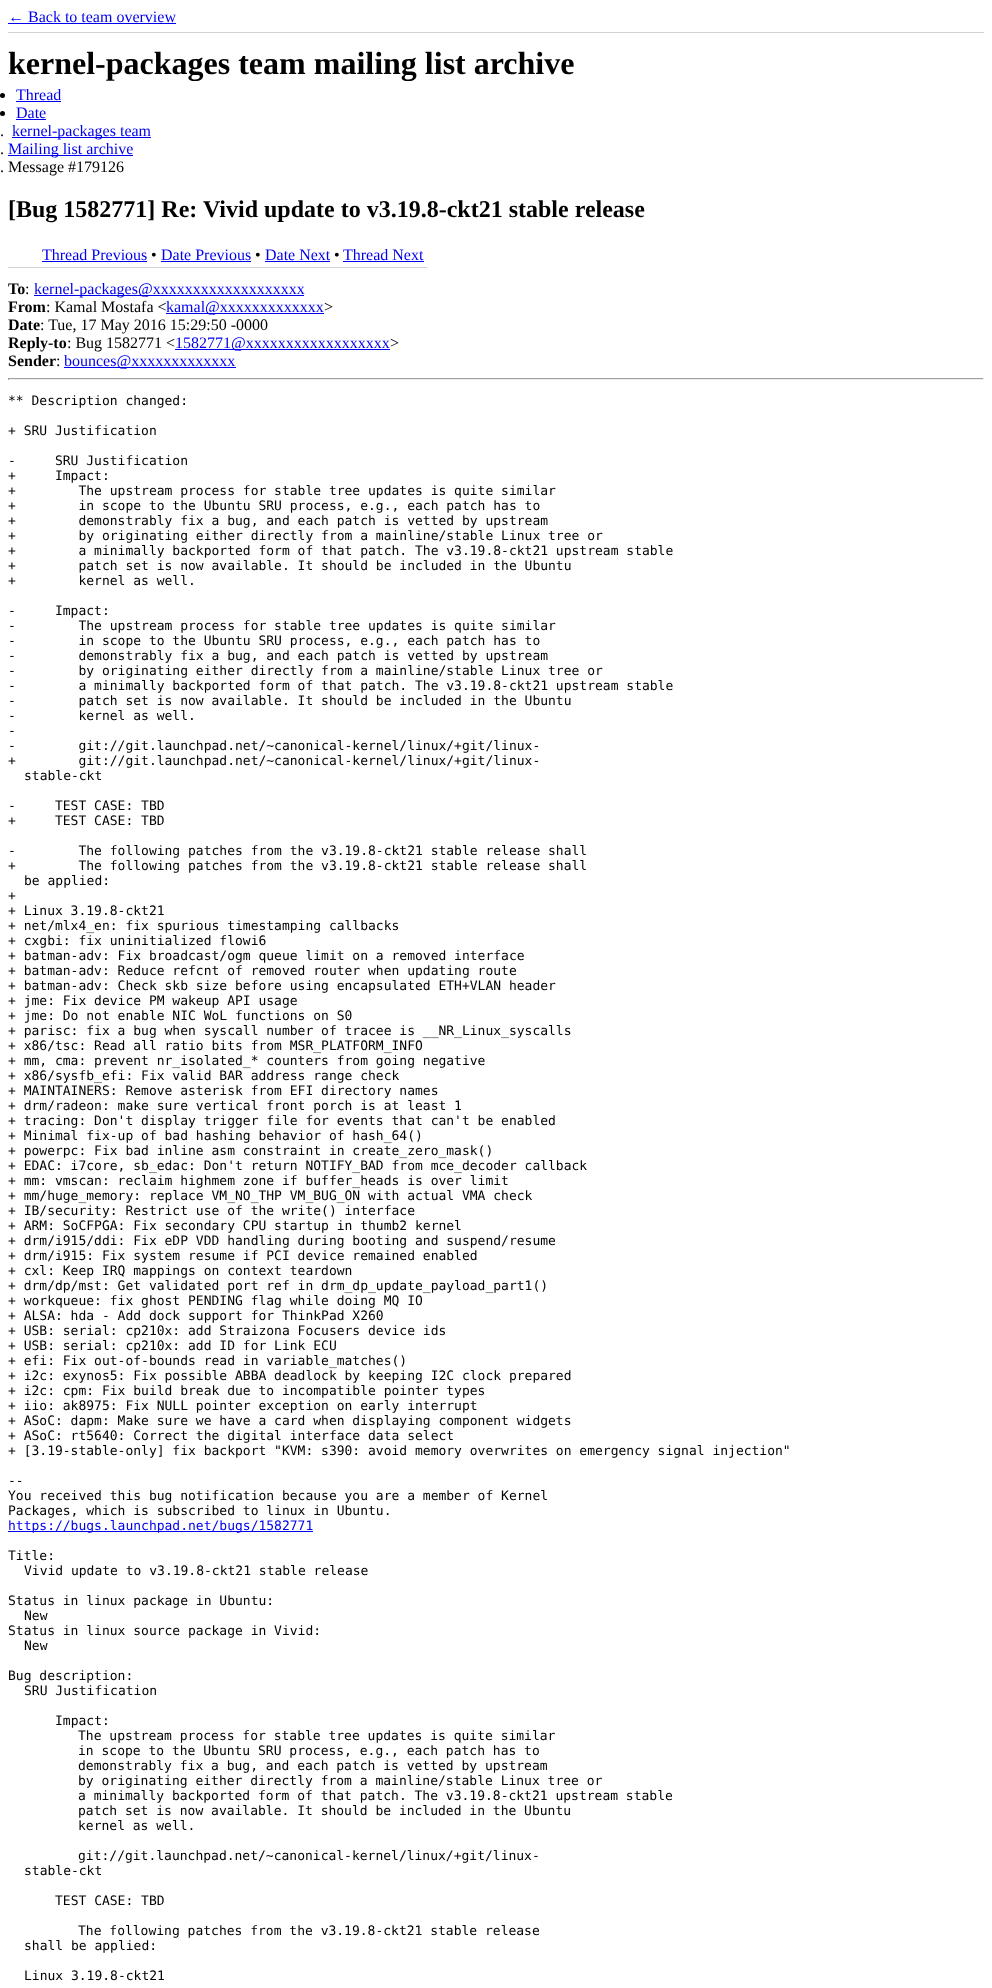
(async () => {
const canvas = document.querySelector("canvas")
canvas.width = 992
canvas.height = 1988
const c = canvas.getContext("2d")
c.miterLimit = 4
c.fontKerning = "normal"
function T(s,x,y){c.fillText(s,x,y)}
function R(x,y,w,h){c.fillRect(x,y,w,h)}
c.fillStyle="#fff"
R(0,0,992,1988)
c.fillStyle="#d2d2d2"
R(8,32,976,1)
c.font="16px Liberation Serif"
c.fillStyle="#00e"
T("← Back to team overview",8,22)
R(8,23,168,1)
c.font="bold 32px Liberation Serif"
c.fillStyle="#000"
T("kernel-packages team mailing list archive",8,74)
c.beginPath()
c.arc(2.5,95.5,2.5,0,7)
c.fill()
c.font="16px Liberation Serif"
c.fillStyle="#00e"
T("Thread",16,100)
R(16,101,45,1)
c.fillStyle="#000"
c.beginPath()
c.arc(2.5,113.5,2.5,0,7)
c.fill()
c.fillStyle="#00e"
T("Date",16,118)
R(16,119,30,1)
c.fillStyle="#000"
T(".",0,136)
c.fillStyle="#00e"
R(12,137,139,1)
T("kernel-packages team",12,136)
c.fillStyle="#000"
T(".",0,154)
c.fillStyle="#00e"
R(8,155,125,1)
T("Mailing list archive",8,154)
c.fillStyle="#000"
T(". Message #179126",0,172)
c.font="bold 24px Liberation Serif"
T("[Bug 1582771] Re: Vivid update to v3.19.8-ckt21 stable release",8,217)
c.fillStyle="#d2d2d2"
R(8,267,419,1)
c.font="16px Liberation Serif"
c.fillStyle="#00e"
T("Thread Previous",42,260)
R(42,261,105,1)
c.fillStyle="#000"
T("•",151,260)
c.fillStyle="#00e"
T("Date Previous",161,260)
R(161,261,90,1)
c.fillStyle="#000"
T("•",255,260)
c.fillStyle="#00e"
T("Date Next",265,260)
R(265,261,65,1)
c.fillStyle="#000"
T("•",334,260)
c.fillStyle="#00e"
T("Thread Next",343,260)
R(343,261,81,1)
c.font="bold 16px Liberation Serif"
c.fillStyle="#000"
T("To",8,294)
c.font="16px Liberation Serif"
T(":",25,294)
c.fillStyle="#00e"
R(34,295,270,1)
T("kernel-packages@xxxxxxxxxxxxxxxxxxx",34,294)
c.font="bold 16px Liberation Serif"
c.fillStyle="#000"
T("From",8,312)
c.font="16px Liberation Serif"
T(": Kamal Mostafa <",46,312)
c.fillStyle="#00e"
R(166,313,158,1)
T("kamal@xxxxxxxxxxxxx",166,312)
c.fillStyle="#000"
T(">",324,312)
c.font="bold 16px Liberation Serif"
T("Date",8,330)
c.font="16px Liberation Serif"
T(": Tue, 17 May 2016 15:29:50 -0000",40,330)
c.font="bold 16px Liberation Serif"
T("Reply-to",8,348)
c.font="16px Liberation Serif"
T(": Bug 1582771 <",67,348)
c.fillStyle="#00e"
R(175,349,215,1)
T("1582771@xxxxxxxxxxxxxxxxxx",175,348)
c.fillStyle="#000"
T(">",390,348)
c.font="bold 16px Liberation Serif"
T("Sender",8,366)
c.font="16px Liberation Serif"
T(":",56,366)
c.fillStyle="#00e"
R(64,367,172,1)
T("bounces@xxxxxxxxxxxxx",64,366)
c.fillStyle="#9f9f9f"
R(8,378,976,1)
c.fillStyle="#eee"
R(983,378,1,2)
R(8,379,976,1)
c.fillStyle="#9f9f9f"
R(8,378,1,2)
c.font="13px DejaVu Sans Mono"
c.fillStyle="#000"
T("** Description changed:",8,405)
T("+ SRU Justification",8,435)
T("-     SRU Justification",8,465)
T("+     Impact:",8,480)
T("+        The upstream process for stable tree updates is quite similar",8,495)
T("+        in scope to the Ubuntu SRU process, e.g., each patch has to",8,510)
T("+        demonstrably fix a bug, and each patch is vetted by upstream",8,525)
T("+        by originating either directly from a mainline/stable Linux tree or",8,540)
T("+        a minimally backported form of that patch. The v3.19.8-ckt21 upstream stable",8,555)
T("+        patch set is now available. It should be included in the Ubuntu",8,570)
T("+        kernel as well.",8,585)
T("-     Impact:",8,615)
T("-        The upstream process for stable tree updates is quite similar",8,630)
T("-        in scope to the Ubuntu SRU process, e.g., each patch has to",8,645)
T("-        demonstrably fix a bug, and each patch is vetted by upstream",8,660)
T("-        by originating either directly from a mainline/stable Linux tree or",8,675)
T("-        a minimally backported form of that patch. The v3.19.8-ckt21 upstream stable",8,690)
T("-        patch set is now available. It should be included in the Ubuntu",8,705)
T("-        kernel as well.",8,720)
T("-",8,735)
T("-        git://git.launchpad.net/~canonical-kernel/linux/+git/linux-",8,750)
T("+        git://git.launchpad.net/~canonical-kernel/linux/+git/linux-",8,765)
T("stable-ckt",24,780)
T("-     TEST CASE: TBD",8,810)
T("+     TEST CASE: TBD",8,825)
T("-        The following patches from the v3.19.8-ckt21 stable release shall",8,855)
T("+        The following patches from the v3.19.8-ckt21 stable release shall",8,870)
T("be applied:",24,885)
T("+",8,900)
T("+ Linux 3.19.8-ckt21",8,915)
T("+ net/mlx4_en: fix spurious timestamping callbacks",8,930)
T("+ cxgbi: fix uninitialized flowi6",8,945)
T("+ batman-adv: Fix broadcast/ogm queue limit on a removed interface",8,960)
T("+ batman-adv: Reduce refcnt of removed router when updating route",8,975)
T("+ batman-adv: Check skb size before using encapsulated ETH+VLAN header",8,990)
T("+ jme: Fix device PM wakeup API usage",8,1005)
T("+ jme: Do not enable NIC WoL functions on S0",8,1020)
T("+ parisc: fix a bug when syscall number of tracee is __NR_Linux_syscalls",8,1035)
T("+ x86/tsc: Read all ratio bits from MSR_PLATFORM_INFO",8,1050)
T("+ mm, cma: prevent nr_isolated_* counters from going negative",8,1065)
T("+ x86/sysfb_efi: Fix valid BAR address range check",8,1080)
T("+ MAINTAINERS: Remove asterisk from EFI directory names",8,1095)
T("+ drm/radeon: make sure vertical front porch is at least 1",8,1110)
T("+ tracing: Don't display trigger file for events that can't be enabled",8,1125)
T("+ Minimal fix-up of bad hashing behavior of hash_64()",8,1140)
T("+ powerpc: Fix bad inline asm constraint in create_zero_mask()",8,1155)
T("+ EDAC: i7core, sb_edac: Don't return NOTIFY_BAD from mce_decoder callback",8,1170)
T("+ mm: vmscan: reclaim highmem zone if buffer_heads is over limit",8,1185)
T("+ mm/huge_memory: replace VM_NO_THP VM_BUG_ON with actual VMA check",8,1200)
T("+ IB/security: Restrict use of the write() interface",8,1215)
T("+ ARM: SoCFPGA: Fix secondary CPU startup in thumb2 kernel",8,1230)
T("+ drm/i915/ddi: Fix eDP VDD handling during booting and suspend/resume",8,1245)
T("+ drm/i915: Fix system resume if PCI device remained enabled",8,1260)
T("+ cxl: Keep IRQ mappings on context teardown",8,1275)
T("+ drm/dp/mst: Get validated port ref in drm_dp_update_payload_part1()",8,1290)
T("+ workqueue: fix ghost PENDING flag while doing MQ IO",8,1305)
T("+ ALSA: hda - Add dock support for ThinkPad X260",8,1320)
T("+ USB: serial: cp210x: add Straizona Focusers device ids",8,1335)
T("+ USB: serial: cp210x: add ID for Link ECU",8,1350)
T("+ efi: Fix out-of-bounds read in variable_matches()",8,1365)
T("+ i2c: exynos5: Fix possible ABBA deadlock by keeping I2C clock prepared",8,1380)
T("+ i2c: cpm: Fix build break due to incompatible pointer types",8,1395)
T("+ iio: ak8975: Fix NULL pointer exception on early interrupt",8,1410)
T("+ ASoC: dapm: Make sure we have a card when displaying component widgets",8,1425)
T("+ ASoC: rt5640: Correct the digital interface data select",8,1440)
T("+ [3.19-stable-only] fix backport \"KVM: s390: avoid memory overwrites on emergency signal injection\"",8,1455)
T("--",8,1485)
T("You received this bug notification because you are a member of Kernel",8,1500)
T("Packages, which is subscribed to linux in Ubuntu.",8,1515)
c.fillStyle="#00e"
R(8,1531,305,1)
T("https://bugs.launchpad.net/bugs/1582771",8,1530)
c.fillStyle="#000"
T("Title:",8,1560)
T("Vivid update to v3.19.8-ckt21 stable release",24,1575)
T("Status in linux package in Ubuntu:",8,1605)
T("New",24,1620)
T("Status in linux source package in Vivid:",8,1635)
T("New",24,1650)
T("Bug description:",8,1680)
T("SRU Justification",24,1695)
T("Impact:",55,1725)
T("The upstream process for stable tree updates is quite similar",78,1740)
T("in scope to the Ubuntu SRU process, e.g., each patch has to",78,1755)
T("demonstrably fix a bug, and each patch is vetted by upstream",78,1770)
T("by originating either directly from a mainline/stable Linux tree or",78,1785)
T("a minimally backported form of that patch. The v3.19.8-ckt21 upstream stable",78,1800)
T("patch set is now available. It should be included in the Ubuntu",78,1815)
T("kernel as well.",78,1830)
T("git://git.launchpad.net/~canonical-kernel/linux/+git/linux-",78,1860)
T("stable-ckt",24,1875)
T("TEST CASE: TBD",55,1905)
T("The following patches from the v3.19.8-ckt21 stable release",78,1935)
T("shall be applied:",24,1950)
T("Linux 3.19.8-ckt21",24,1980)
})()
